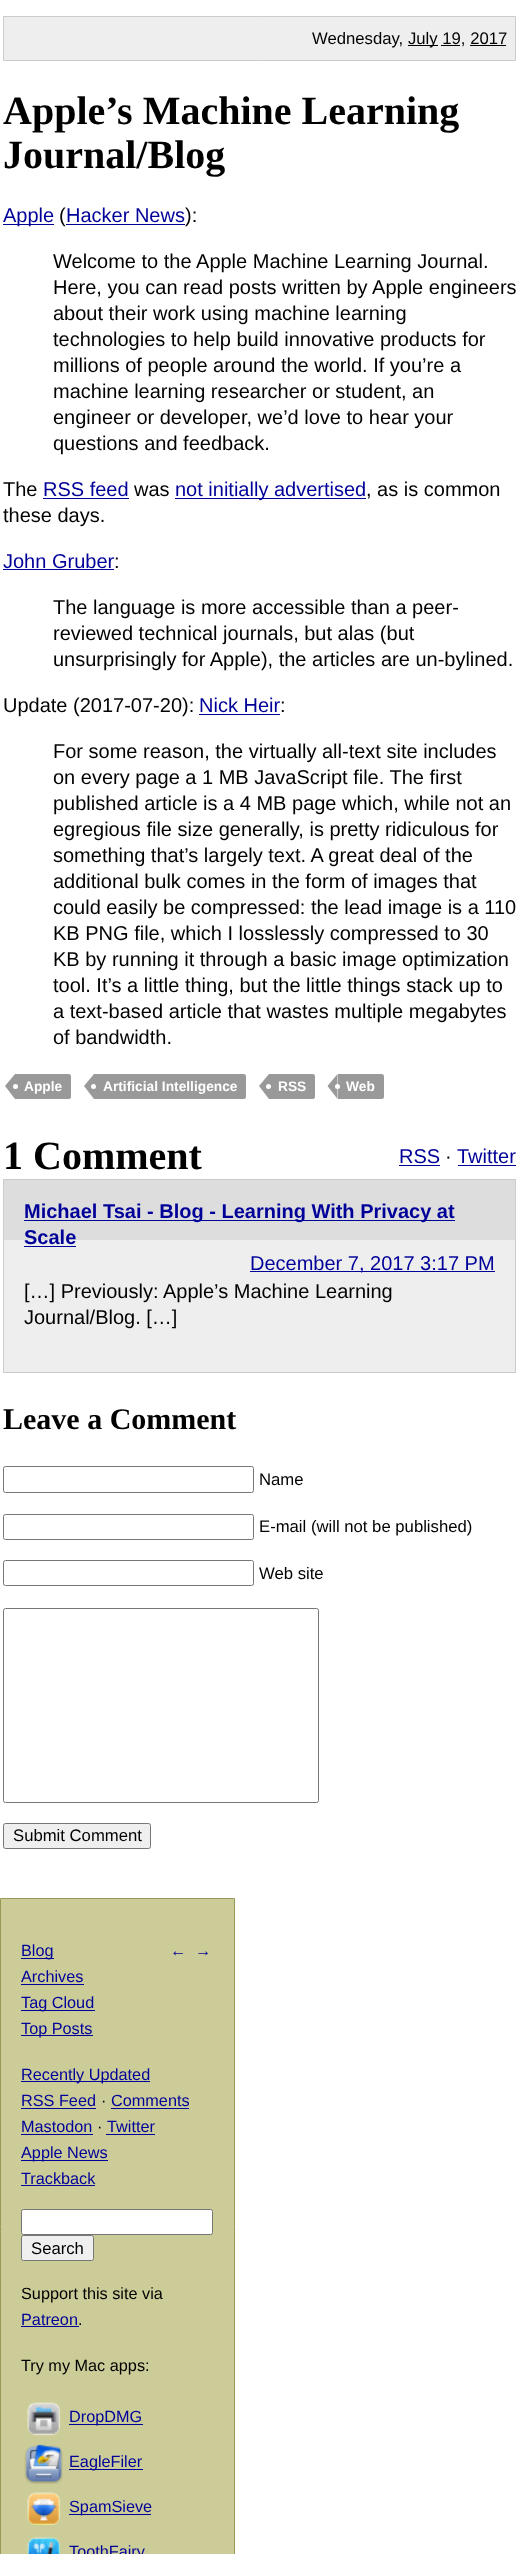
(async () => {
const canvas = document.querySelector("canvas")
canvas.width = 518
canvas.height = 2554
const c = canvas.getContext("2d")
c.miterLimit = 4
c.fontKerning = "normal"
function T(s,x,y){c.fillText(s,x,y)}
function R(x,y,w,h){c.fillRect(x,y,w,h)}
async function I(src,x,y,w,h){const img=new Image();img.src=src;await img.decode();c.drawImage(img,x,y,w,h)}
let path
c.fillStyle="#fff"
R(0,0,518,2554)
c.fillStyle="#eee"
c.beginPath()
c.rect(3.5,16.5,512,44)
c.fill()
c.strokeStyle="#ccc"
c.stroke()
c.font="16.7px Liberation Sans"
c.fillStyle="#000"
T("Wednesday,",312,44)
R(408,45,30,1)
T("July 19, 2017",408,44)
R(441,45,19,1)
R(470,45,36,1)
c.font="bold 40px Liberation Serif"
T("Apple’s Machine Learning",3,124)
T("Journal/Blog",3,168)
c.fillStyle="#009"
R(3,224,51,1)
c.font="20px Liberation Sans"
T("Apple",3,222)
c.fillStyle="#000"
T("(",59,222)
c.fillStyle="#009"
T("Hacker News",66,222)
R(66,224,119,1)
c.fillStyle="#000"
T("):",185,222)
T("Welcome to the Apple Machine Learning Journal.",53,268)
T("Here, you can read posts written by Apple engineers",53,294)
T("about their work using machine learning",53,320)
T("technologies to help build innovative products for",53,346)
T("millions of people around the world. If you’re a",53,372)
T("machine learning researcher or student, an",53,398)
T("engineer or developer, we’d love to hear your",53,424)
T("questions and feedback.",53,450)
T("The",3,496)
c.fillStyle="#009"
T("RSS feed",43,496)
R(43,498,86,1)
c.fillStyle="#000"
T("was",134,496)
c.fillStyle="#009"
R(175,498,191,1)
T("not initially advertised",175,496)
c.fillStyle="#000"
T(", as is common",366,496)
T("these days.",3,522)
c.fillStyle="#009"
T("John Gruber",3,568)
R(3,569,111,1)
c.fillStyle="#000"
T(":",114,568)
T("The language is more accessible than a peer-",53,614)
T("reviewed technical journals, but alas (but",53,640)
T("unsurprisingly for Apple), the articles are un-bylined.",53,666)
T("Update (2017-07-20):",3,712)
c.fillStyle="#009"
T("Nick Heir",199,712)
R(199,714,81,1)
c.fillStyle="#000"
T(":",280,712)
T("For some reason, the virtually all-text site includes",53,758)
T("on every page a 1 MB JavaScript file. The first",53,784)
T("published article is a 4 MB page which, while not an",53,810)
T("egregious file size generally, is pretty ridiculous for",53,836)
T("something that’s largely text. A great deal of the",53,862)
T("additional bulk comes in the form of images that",53,888)
T("could easily be compressed: the lead image is a 110",53,914)
T("KB PNG file, which I losslessly compressed to 30",53,940)
T("KB by running it through a basic image optimization",53,966)
T("tool. It’s a little thing, but the little things stack up to",53,992)
T("a text-based article that wastes multiple megabytes",53,1018)
T("of bandwidth.",53,1044)
c.fillStyle="#999"
c.beginPath()
c.roundRect(15,1074,56,25,[0,2.5,2.5,0])
c.fill()
path = new Path2D("M15 1074v25l-10-13z")
c.fill(path)
c.fillStyle="#fff"
c.beginPath()
c.arc(15.5,1086.5,2.5,0,7)
c.fill()
c.font="bold 13.75px Liberation Sans"
T("Apple",24,1091)
c.fillStyle="#999"
c.beginPath()
c.roundRect(94,1074,152,25,[0,2.5,2.5,0])
c.fill()
path = new Path2D("M94 1074v25l-10-13z")
c.fill(path)
c.fillStyle="#fff"
T("Artificial Intelligence",103,1091)
c.beginPath()
c.arc(93.5,1086.5,2.5,0,7)
c.fill()
c.fillStyle="#999"
c.beginPath()
c.roundRect(269,1074,46,25,[0,2.5,2.5,0])
c.fill()
path = new Path2D("M269 1074v25l-10-13z")
c.fill(path)
c.fillStyle="#fff"
T("RSS",278,1091)
c.beginPath()
c.arc(268.5,1086.5,2.5,0,7)
c.fill()
c.fillStyle="#999"
c.beginPath()
c.roundRect(338,1074,46,25,[0,2.5,2.5,0])
c.fill()
path = new Path2D("M337.5 1074v25l-10-13z")
c.fill(path)
c.fillStyle="#fff"
T("Web",346,1091)
c.beginPath()
c.arc(337.5,1086.5,2.5,0,7)
c.fill()
c.font="bold 40px Liberation Serif"
c.fillStyle="#000"
T("1 Comment",3,1169)
c.font="20px Liberation Sans"
c.fillStyle="#009"
T("RSS",399,1163)
R(399,1165,41,1)
c.fillStyle="#000"
T("·",445,1163)
c.fillStyle="#009"
T("Twitter",457,1163)
R(458,1165,58,1)
c.fillStyle="#eee"
R(4,1240,511,132)
c.strokeRect(3.5,1179.5,512,193)
c.fillStyle="#ddd"
R(4,1180,511,60)
c.fillStyle="#009"
R(24,1220,431,1)
c.font="bold 20px Liberation Sans"
T("Michael Tsai - Blog - Learning With Privacy at",24,1218)
T("Scale",24,1244)
R(24,1246,52,1)
R(250,1271,245,1)
c.font="20px Liberation Sans"
T("December 7, 2017 3:17 PM",250,1270)
c.fillStyle="#000"
T("[…] Previously: Apple’s Machine Learning",24,1298)
T("Journal/Blog. […]",24,1324)
c.font="bold 30px Liberation Serif"
T("Leave a Comment",3,1429)
c.beginPath()
c.roundRect(3.5,1466.5,250,26,2)
c.strokeStyle="#767676"
c.stroke()
c.font="16.7px Liberation Sans"
T("Name",259,1485)
c.beginPath()
c.roundRect(3.5,1514.5,250,25,2)
c.stroke()
T("E-mail (will not be published)",259,1532)
c.beginPath()
c.roundRect(3.5,1560.5,250,25,2)
c.stroke()
T("Web site",259,1579)
c.beginPath()
c.roundRect(3.5,1608.5,315,194,2)
c.stroke()
c.fillStyle="#efefef"
c.beginPath()
c.roundRect(3.5,1823.5,147,25,2)
c.fill()
c.stroke()
c.fillStyle="#000"
T("Submit Comment",13,1841)
c.fillStyle="#cc9"
c.beginPath()
c.rect(.5,1898.5,234,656)
c.fill()
c.strokeStyle="#995"
c.stroke()
c.fillStyle="#009"
R(21,1958,33,1)
c.font="16.25px Liberation Sans"
T("Blog",21,1956)
T("Archives",21,1982)
R(21,1984,63,1)
R(21,2010,74,1)
T("Tag Cloud",21,2008)
R(21,2035,72,1)
T("Top Posts",21,2034)
R(21,2081,129,1)
T("Recently Updated",21,2080)
T("RSS Feed",21,2106)
R(21,2108,75,1)
c.fillStyle="#000"
T("·",101,2106)
c.fillStyle="#009"
T("Comments",111,2106)
R(111,2108,78,1)
T("Mastodon",21,2132)
R(21,2134,72,1)
c.fillStyle="#000"
T("·",97,2132)
c.fillStyle="#009"
T("Twitter",107,2132)
R(106,2134,49,1)
R(21,2160,87,1)
T("Apple News",21,2158)
T("Trackback",21,2184)
R(21,2185,74,1)
T("←",170,1956)
T("→",195,1956)
c.fillStyle="#fff"
c.beginPath()
c.roundRect(21.5,2209.5,191,25,2)
c.fill()
c.strokeStyle="#767676"
c.stroke()
c.fillStyle="#efefef"
c.beginPath()
c.roundRect(21.5,2235.5,72,25,2)
c.fill()
c.stroke()
c.font="16.7px Liberation Sans"
c.fillStyle="#000"
T("Search",31,2254)
c.font="16.25px Liberation Sans"
T("Support this site via",21,2299)
c.fillStyle="#009"
T("Patreon",21,2325)
R(21,2326,58,1)
c.fillStyle="#000"
T(".",78,2325)
T("Try my Mac apps:",21,2371)
await I("1.png",27,2402,34,34)
c.fillStyle="#009"
R(69,2424,74,1)
T("DropDMG",69,2422)
await I("2.png",24,2444,39,40)
R(69,2469,74,1)
T("EagleFiler",69,2467)
await I("3.png",27,2492,34,33)
R(69,2514,82,1)
T("SpamSieve",69,2512)
await I("4.png",27,2537,34,17)
T("ToothFairy",69,2557)
})()
